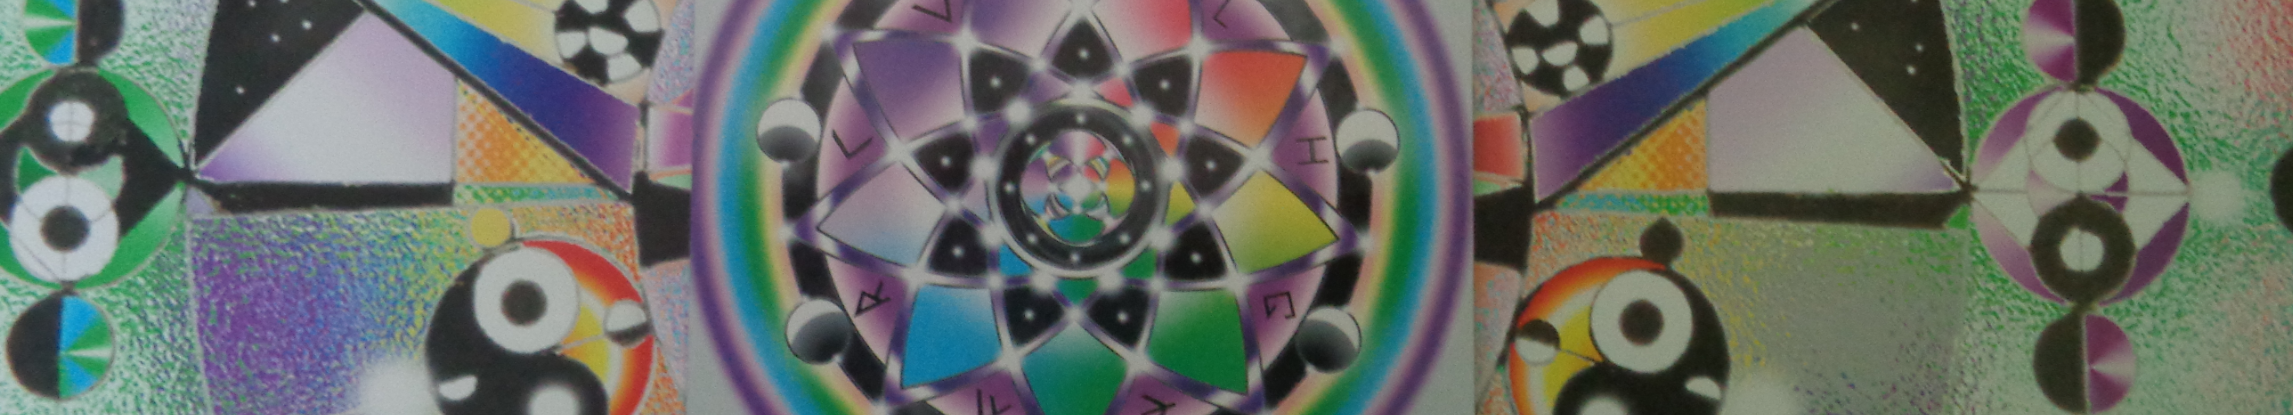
(async () => {
const canvas = document.querySelector("canvas")
canvas.width = 2293
canvas.height = 415
const c = canvas.getContext("2d")
c.miterLimit = 4
c.fontKerning = "normal"
function R(x,y,w,h){c.fillRect(x,y,w,h)}
async function I(src,x,y,w,h){const img=new Image();img.src=src;await img.decode();c.drawImage(img,x,y,w,h)}
c.fillStyle="#fff"
R(0,0,2293,415)
await I("1.png",0,0,2293,415)
})()
